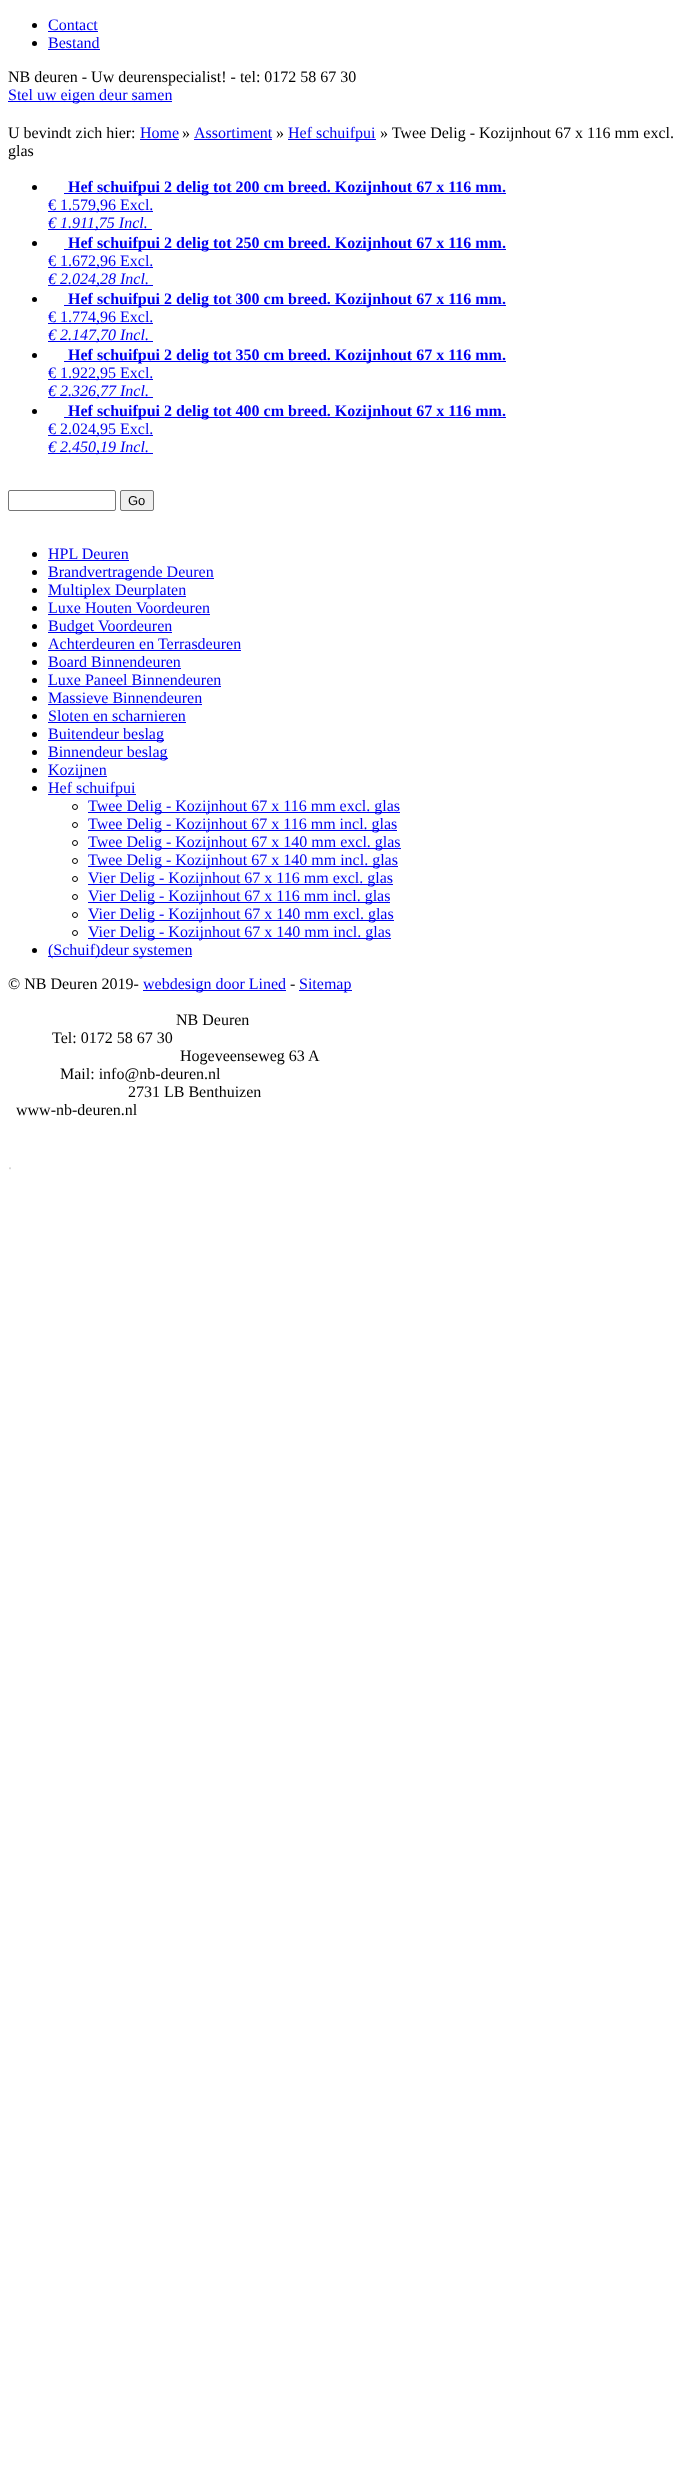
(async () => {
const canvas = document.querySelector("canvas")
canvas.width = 696
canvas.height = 2480
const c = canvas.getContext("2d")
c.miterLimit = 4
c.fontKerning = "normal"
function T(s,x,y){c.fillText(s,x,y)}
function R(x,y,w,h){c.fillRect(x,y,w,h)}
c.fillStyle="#fff"
R(0,0,696,2480)
c.fillStyle="#000"
c.beginPath()
c.arc(34.5,25.5,2.5,0,7)
c.fill()
c.font="16px Liberation Serif"
c.fillStyle="#00e"
T("Contact",48,30)
R(48,31,50,1)
c.fillStyle="#000"
c.beginPath()
c.arc(34.5,43.5,2.5,0,7)
c.fill()
c.fillStyle="#00e"
T("Bestand",48,48)
R(48,49,52,1)
c.fillStyle="#000"
T("NB deuren - Uw deurenspecialist! - tel: 0172 58 67 30",8,82)
c.fillStyle="#00e"
R(8,101,164,1)
T("Stel uw eigen deur samen",8,100)
c.fillStyle="#000"
T("U bevindt zich hier:",8,138)
c.fillStyle="#00e"
T("Home",140,138)
R(140,139,39,1)
c.fillStyle="#000"
T("»",182,138)
c.fillStyle="#00e"
T("Assortiment",194,138)
R(194,139,78,1)
c.fillStyle="#000"
T("»",276,138)
c.fillStyle="#00e"
R(288,139,88,1)
T("Hef schuifpui",288,138)
c.fillStyle="#000"
T("» Twee Delig - Kozijnhout 67 x 116 mm excl.",380,138)
T("glas",8,156)
c.beginPath()
c.arc(34.5,187.5,2.5,0,7)
c.fill()
c.fillStyle="#00e"
R(64,193,442,1)
c.font="bold 16px Liberation Serif"
T("Hef schuifpui 2 delig tot 200 cm breed. Kozijnhout 67 x 116 mm.",68,192)
R(48,211,105,1)
c.font="16px Liberation Serif"
T("€ 1.579,96 Excl.",48,210)
R(48,229,104,1)
c.font="italic 16px Liberation Serif"
T("€ 1.911,75 Incl.",48,228)
c.fillStyle="#000"
c.beginPath()
c.arc(34.5,243.5,2.5,0,7)
c.fill()
c.fillStyle="#00e"
R(64,249,442,1)
c.font="bold 16px Liberation Serif"
T("Hef schuifpui 2 delig tot 250 cm breed. Kozijnhout 67 x 116 mm.",68,248)
R(48,267,105,1)
c.font="16px Liberation Serif"
T("€ 1.672,96 Excl.",48,266)
R(48,285,105,1)
c.font="italic 16px Liberation Serif"
T("€ 2.024,28 Incl.",48,284)
c.fillStyle="#000"
c.beginPath()
c.arc(34.5,299.5,2.5,0,7)
c.fill()
c.fillStyle="#00e"
R(64,305,442,1)
c.font="bold 16px Liberation Serif"
T("Hef schuifpui 2 delig tot 300 cm breed. Kozijnhout 67 x 116 mm.",68,304)
R(48,323,105,1)
c.font="16px Liberation Serif"
T("€ 1.774,96 Excl.",48,322)
R(48,341,105,1)
c.font="italic 16px Liberation Serif"
T("€ 2.147,70 Incl.",48,340)
c.fillStyle="#000"
c.beginPath()
c.arc(34.5,355.5,2.5,0,7)
c.fill()
c.fillStyle="#00e"
R(64,361,442,1)
c.font="bold 16px Liberation Serif"
T("Hef schuifpui 2 delig tot 350 cm breed. Kozijnhout 67 x 116 mm.",68,360)
R(48,379,105,1)
c.font="16px Liberation Serif"
T("€ 1.922,95 Excl.",48,378)
R(48,397,105,1)
c.font="italic 16px Liberation Serif"
T("€ 2.326,77 Incl.",48,396)
c.fillStyle="#000"
c.beginPath()
c.arc(34.5,411.5,2.5,0,7)
c.fill()
c.fillStyle="#00e"
R(64,417,442,1)
c.font="bold 16px Liberation Serif"
T("Hef schuifpui 2 delig tot 400 cm breed. Kozijnhout 67 x 116 mm.",68,416)
R(48,435,105,1)
c.font="16px Liberation Serif"
T("€ 2.024,95 Excl.",48,434)
R(48,453,105,1)
c.font="italic 16px Liberation Serif"
T("€ 2.450,19 Incl.",48,452)
c.beginPath()
c.roundRect(8.5,490.5,107,20,1.5)
c.strokeStyle="#767676"
c.stroke()
c.fillStyle="#efefef"
c.beginPath()
c.roundRect(120.5,490.5,33,20,1.5)
c.fill()
c.stroke()
c.font="13px Liberation Sans"
c.fillStyle="#000"
T("Go",128,505)
c.beginPath()
c.arc(34.5,554.5,2.5,0,7)
c.fill()
c.font="16px Liberation Serif"
c.fillStyle="#00e"
T("HPL Deuren",48,559)
R(48,560,81,1)
c.fillStyle="#000"
c.beginPath()
c.arc(34.5,572.5,2.5,0,7)
c.fill()
c.fillStyle="#00e"
R(48,578,166,1)
T("Brandvertragende Deuren",48,577)
c.fillStyle="#000"
c.beginPath()
c.arc(34.5,590.5,2.5,0,7)
c.fill()
c.fillStyle="#00e"
R(48,596,138,1)
T("Multiplex Deurplaten",48,595)
c.fillStyle="#000"
c.beginPath()
c.arc(34.5,608.5,2.5,0,7)
c.fill()
c.fillStyle="#00e"
T("Luxe Houten Voordeuren",48,613)
R(48,614,162,1)
c.fillStyle="#000"
c.beginPath()
c.arc(34.5,626.5,2.5,0,7)
c.fill()
c.fillStyle="#00e"
R(48,632,124,1)
T("Budget Voordeuren",48,631)
c.fillStyle="#000"
c.beginPath()
c.arc(34.5,644.5,2.5,0,7)
c.fill()
c.fillStyle="#00e"
T("Achterdeuren en Terrasdeuren",48,649)
R(48,650,193,1)
c.fillStyle="#000"
c.beginPath()
c.arc(34.5,662.5,2.5,0,7)
c.fill()
c.fillStyle="#00e"
T("Board Binnendeuren",48,667)
R(48,668,133,1)
c.fillStyle="#000"
c.beginPath()
c.arc(34.5,680.5,2.5,0,7)
c.fill()
c.fillStyle="#00e"
T("Luxe Paneel Binnendeuren",48,685)
R(48,686,173,1)
c.fillStyle="#000"
c.beginPath()
c.arc(34.5,698.5,2.5,0,7)
c.fill()
c.fillStyle="#00e"
T("Massieve Binnendeuren",48,703)
R(48,704,154,1)
c.fillStyle="#000"
c.beginPath()
c.arc(34.5,716.5,2.5,0,7)
c.fill()
c.fillStyle="#00e"
T("Sloten en scharnieren",48,721)
R(48,722,138,1)
c.fillStyle="#000"
c.beginPath()
c.arc(34.5,734.5,2.5,0,7)
c.fill()
c.fillStyle="#00e"
R(48,740,116,1)
T("Buitendeur beslag",48,739)
c.fillStyle="#000"
c.beginPath()
c.arc(34.5,752.5,2.5,0,7)
c.fill()
c.fillStyle="#00e"
R(48,758,120,1)
T("Binnendeur beslag",48,757)
c.fillStyle="#000"
c.beginPath()
c.arc(34.5,770.5,2.5,0,7)
c.fill()
c.fillStyle="#00e"
R(48,776,59,1)
T("Kozijnen",48,775)
c.fillStyle="#000"
c.beginPath()
c.arc(34.5,788.5,2.5,0,7)
c.fill()
c.fillStyle="#00e"
R(48,794,88,1)
T("Hef schuifpui",48,793)
c.beginPath()
c.arc(75,807,2.5,0,7)
c.strokeStyle="#000"
c.stroke()
R(88,812,312,1)
T("Twee Delig - Kozijnhout 67 x 116 mm excl. glas",88,811)
c.beginPath()
c.arc(75,825,2.5,0,7)
c.stroke()
R(88,830,309,1)
T("Twee Delig - Kozijnhout 67 x 116 mm incl. glas",88,829)
c.beginPath()
c.arc(75,843,2.5,0,7)
c.stroke()
R(88,848,313,1)
T("Twee Delig - Kozijnhout 67 x 140 mm excl. glas",88,847)
c.beginPath()
c.arc(75,861,2.5,0,7)
c.stroke()
R(88,866,310,1)
T("Twee Delig - Kozijnhout 67 x 140 mm incl. glas",88,865)
c.beginPath()
c.arc(75,879,2.5,0,7)
c.stroke()
R(88,884,305,1)
T("Vier Delig - Kozijnhout 67 x 116 mm excl. glas",88,883)
c.beginPath()
c.arc(75,897,2.5,0,7)
c.stroke()
R(88,902,302,1)
T("Vier Delig - Kozijnhout 67 x 116 mm incl. glas",88,901)
c.beginPath()
c.arc(75,915,2.5,0,7)
c.stroke()
R(88,920,306,1)
T("Vier Delig - Kozijnhout 67 x 140 mm excl. glas",88,919)
c.beginPath()
c.arc(75,933,2.5,0,7)
c.stroke()
R(88,938,303,1)
T("Vier Delig - Kozijnhout 67 x 140 mm incl. glas",88,937)
c.fillStyle="#000"
c.beginPath()
c.arc(34.5,950.5,2.5,0,7)
c.fill()
c.fillStyle="#00e"
R(48,956,144,1)
T("(Schuif)deur systemen",48,955)
c.fillStyle="#000"
T("© NB Deuren 2019-",8,989)
c.fillStyle="#00e"
R(143,990,143,1)
T("webdesign door Lined",143,989)
c.fillStyle="#000"
T("-",290,989)
c.fillStyle="#00e"
R(299,990,53,1)
T("Sitemap",299,989)
c.fillStyle="#000"
T("NB Deuren",176,1025)
T("Tel: 0172 58 67 30",52,1043)
T("Hogeveenseweg 63 A",180,1061)
T("Mail: info@nb-deuren.nl",60,1079)
T("2731 LB Benthuizen",128,1097)
T("www-nb-deuren.nl",16,1115)
c.fillStyle="#d3d3d3"
T(".",8,1169)
})()
